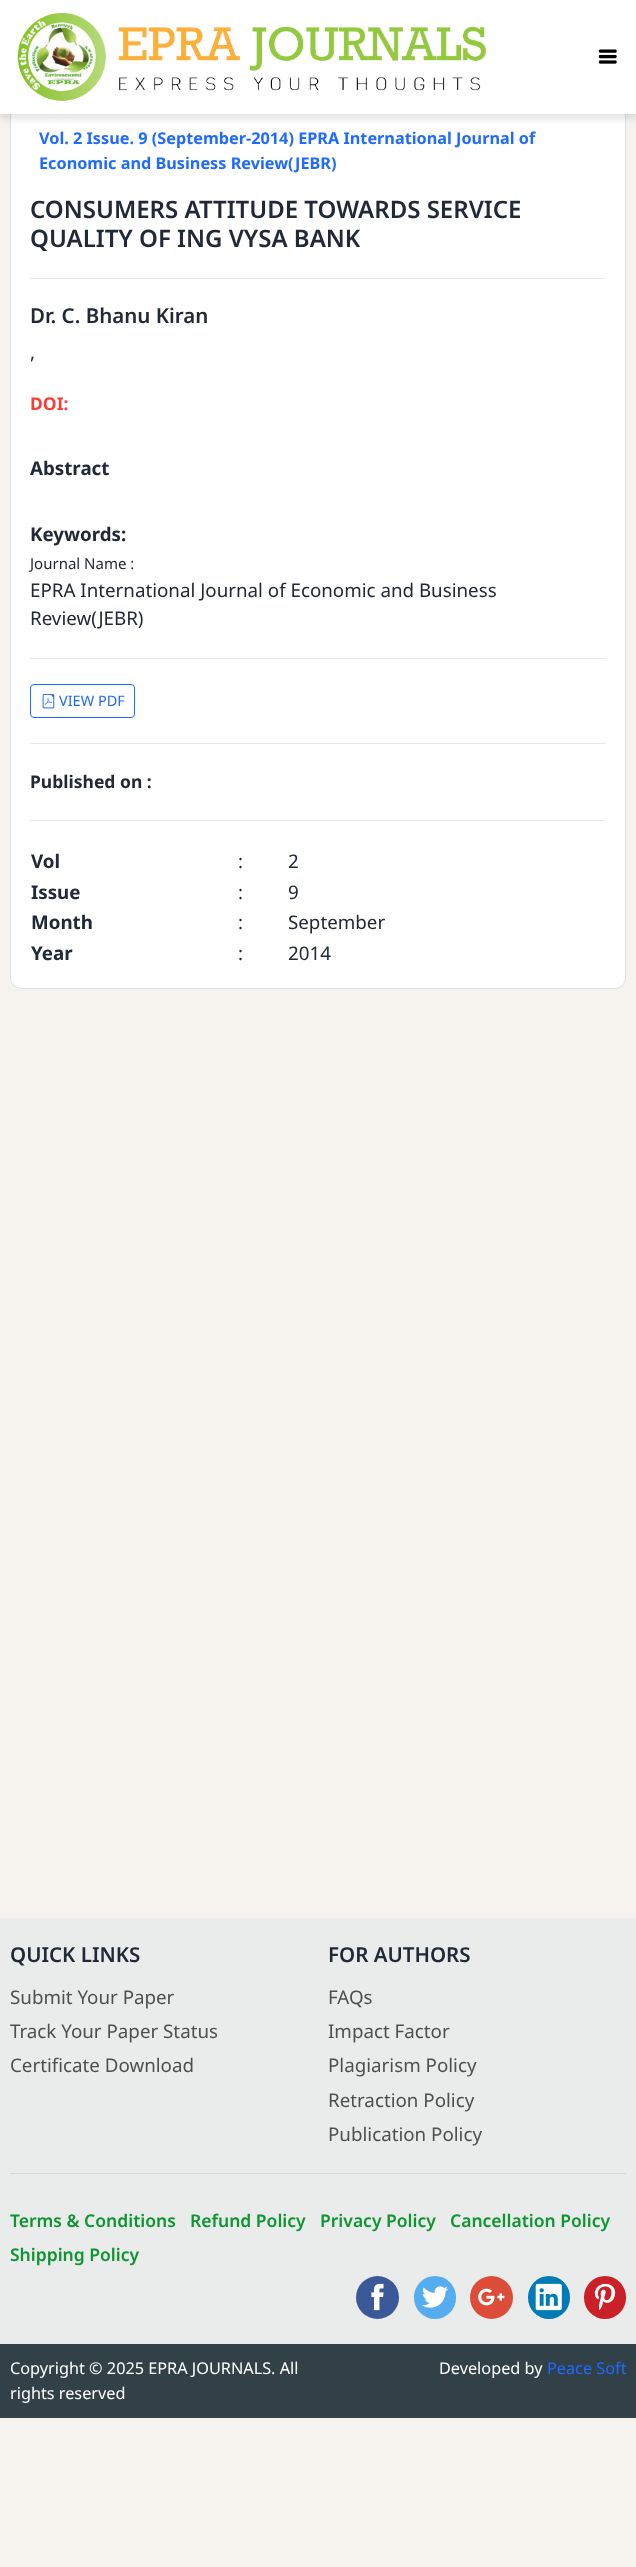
(async () => {
const canvas = document.querySelector("canvas")
canvas.width = 636
canvas.height = 2567
const c = canvas.getContext("2d")
c.miterLimit = 4
c.fontKerning = "normal"
function T(s,x,y){c.fillText(s,x,y)}
function R(x,y,w,h){c.fillRect(x,y,w,h)}
function Q(x,y,w,h,r){c.beginPath();c.roundRect(x,y,w,h,r);c.fill()}
async function I(src,x,y,w,h){const img=new Image();img.src=src;await img.decode();c.drawImage(img,x,y,w,h)}
c.fillStyle="#f6f3ee"
R(0,0,636,2567)
c.fillStyle="#fff"
Q(10,83,616,906,11)
c.beginPath()
c.roundRect(10.5,83.5,615,905,10.5)
c.strokeStyle="#657eae40"
c.stroke()
c.fillStyle="#0000001a"
c.filter="blur(3px)"
c.beginPath()
c.rect(0,5,636,114)
c.fill()
c.filter="none"
c.fillStyle="#fff"
R(0,0,636,114)
await I("1.png",17,13,470,88)
await I("2.png",598,49,19,15)
c.font="bold 16.25px Noto Sans"
c.fillStyle="#1f6bff"
T("Vol. 2 Issue. 9 (September-2014) EPRA International Journal of",39,144)
T("Economic and Business Review(JEBR)",39,169)
c.font="600 24px Noto Sans"
c.fillStyle="#212837"
T("CONSUMERS ATTITUDE TOWARDS SERVICE",30,218)
T("QUALITY OF ING VYSA BANK",30,247)
c.fillStyle="#e8e8e8"
R(30,278,576,1)
c.font="600 20.5px Noto Sans"
c.fillStyle="#212837"
T("Dr. C. Bhanu Kiran",30,323)
c.font="18.75px Noto Sans"
T(",",30,359)
c.font="bold 17.5px Noto Sans"
c.fillStyle="#f83f37"
T("DOI:",30,410)
c.font="bold 18.75px Noto Sans"
c.fillStyle="#212837"
T("Abstract",30,475)
T("Keywords:",30,541)
c.font="15px Noto Sans"
T("Journal Name :",30,569)
c.font="18.75px Noto Sans"
T("EPRA International Journal of Economic and Business",30,597)
T("Review(JEBR)",30,625)
c.fillStyle="#e8e8e8"
R(30,658,576,1)
c.beginPath()
c.roundRect(30.5,684.5,104,33,3.5)
c.strokeStyle="#1f6bff"
c.stroke()
await I("3.png",42,694,13,15)
c.font="14.5px Noto Sans"
c.fillStyle="#1f6bff"
T("VIEW PDF",59,706)
c.fillStyle="#e8e8e8"
R(30,743,576,1)
c.font="bold 17.5px Noto Sans"
c.fillStyle="#212837"
T("Published on :",30,788)
c.fillStyle="#e8e8e8"
R(30,820,576,1)
c.font="bold 18.75px Noto Sans"
c.fillStyle="#212837"
T("Vol",31,868)
c.font="18.75px Noto Sans"
T(":",238,868)
T("2",288,868)
c.font="bold 18.75px Noto Sans"
T("Issue",31,899)
c.font="18.75px Noto Sans"
T(":",238,899)
T("9",288,899)
c.font="bold 18.75px Noto Sans"
T("Month",31,929)
c.font="18.75px Noto Sans"
T(":",238,929)
T("September",288,929)
c.font="bold 18.75px Noto Sans"
T("Year",31,960)
c.font="18.75px Noto Sans"
T(":",238,960)
T("2014",288,960)
c.fillStyle="#eaecec"
R(0,1918,636,426)
c.font="600 20.5px Noto Sans"
c.fillStyle="#212837"
T("QUICK LINKS",10,1962)
c.font="18.75px Noto Sans"
c.fillStyle="#504e4e"
T("Submit Your Paper",10,2004)
T("Track Your Paper Status",10,2038)
T("Certificate Download",10,2072)
c.font="600 20.5px Noto Sans"
c.fillStyle="#212837"
T("FOR AUTHORS",328,1962)
c.font="18.75px Noto Sans"
c.fillStyle="#504e4e"
T("FAQs",328,2004)
T("Impact Factor",328,2038)
T("Plagiarism Policy",328,2072)
T("Retraction Policy",328,2107)
T("Publication Policy",328,2141)
c.fillStyle="#d8dada"
R(10,2173,616,1)
c.font="600 17.5px Noto Sans"
c.fillStyle="#0d9530"
T("Terms & Conditions",10,2227)
T("Refund Policy",190,2227)
T("Privacy Policy",320,2227)
T("Cancellation Policy",450,2227)
T("Shipping Policy",10,2261)
c.fillStyle="#3b5998"
c.beginPath()
c.arc(377.5,2297.5,21.5,0,7)
c.fill()
await I("4.png",371,2283,13,28)
c.fillStyle="#55acee"
Q(414,2276,42,43,21)
await I("5.png",422,2286,26,22)
c.fillStyle="#dd4b39"
c.beginPath()
c.arc(491.5,2297.5,21.5,0,7)
c.fill()
await I("6.png",478,2288,27,18)
c.fillStyle="#007bb5"
Q(528,2276,42,43,21)
await I("7.png",535,2283,27,28)
c.fillStyle="#cb2027"
Q(584,2276,42,43,21)
await I("8.png",594,2283,22,28)
c.fillStyle="#324148"
R(0,2344,636,74)
c.font="16.25px Noto Sans"
c.fillStyle="#fff"
T("Copyright © 2025 EPRA JOURNALS. All",10,2374)
T("rights reserved",10,2399)
T("Developed by",439,2374)
c.fillStyle="#1f6bff"
T("Peace Soft",547,2374)
})()
